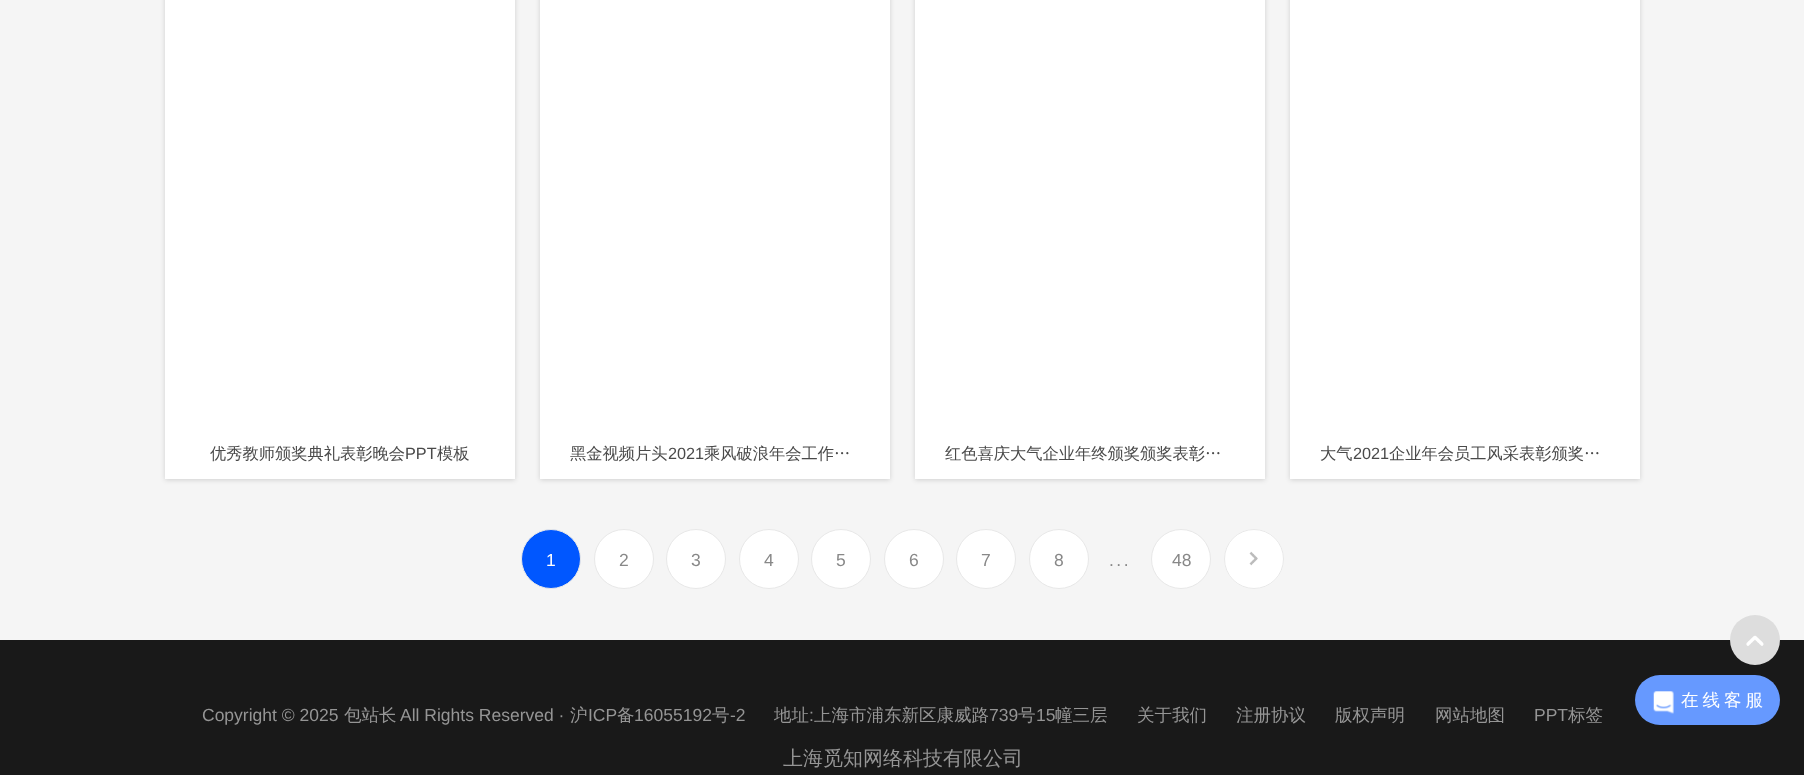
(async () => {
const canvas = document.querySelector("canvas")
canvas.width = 1804
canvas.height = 775
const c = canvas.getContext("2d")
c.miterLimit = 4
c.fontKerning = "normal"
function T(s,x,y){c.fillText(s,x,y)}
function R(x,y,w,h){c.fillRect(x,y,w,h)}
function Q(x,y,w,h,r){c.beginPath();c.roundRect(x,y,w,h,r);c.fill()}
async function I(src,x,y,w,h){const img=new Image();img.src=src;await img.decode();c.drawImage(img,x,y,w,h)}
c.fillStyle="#f5f5f5"
R(0,0,1804,775)
c.fillStyle="#00000026"
c.filter="blur(2.5px)"
c.beginPath()
c.rect(165,-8,350,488)
c.fill()
c.filter="none"
c.fillStyle="#fff"
R(165,0,350,479)
c.font="500 16.25px WenQuanYi Zen Hei"
c.fillStyle="#4a4a4a"
T("优秀教师颁奖典礼表彰晚会",210,459)
c.font="16.25px Liberation Sans"
T("PPT",405,459)
c.font="500 16.25px WenQuanYi Zen Hei"
T("模板",437,459)
c.fillStyle="#00000026"
c.filter="blur(2.5px)"
c.beginPath()
c.rect(540,-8,350,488)
c.fill()
c.filter="none"
c.fillStyle="#fff"
R(540,0,350,479)
c.fillStyle="#4a4a4a"
T("黑金视频片头",570,459)
c.font="16.25px Liberation Sans"
T("2021",668,459)
c.font="500 16.25px WenQuanYi Zen Hei"
T("乘风破浪年会工作…",704,459)
c.fillStyle="#00000026"
c.filter="blur(2.5px)"
c.beginPath()
c.rect(915,-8,350,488)
c.fill()
c.filter="none"
c.fillStyle="#fff"
R(915,0,350,479)
c.fillStyle="#4a4a4a"
T("红色喜庆大气企业年终颁奖颁奖表彰…",945,459)
c.fillStyle="#00000026"
c.filter="blur(2.5px)"
c.beginPath()
c.rect(1290,-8,350,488)
c.fill()
c.filter="none"
c.fillStyle="#fff"
R(1290,0,350,479)
c.fillStyle="#4a4a4a"
T("大气",1320,459)
c.font="16.25px Liberation Sans"
T("2021",1353,459)
c.font="500 16.25px WenQuanYi Zen Hei"
T("企业年会员工风采表彰颁奖…",1389,459)
c.fillStyle="#0057ff"
c.beginPath()
c.arc(551,559,29.5,0,7)
c.fill()
c.strokeStyle="#e8e8e8"
c.stroke()
c.font="17.5px Liberation Sans"
c.fillStyle="#fff"
T("1",546,566)
c.beginPath()
c.arc(624,559,29.5,0,7)
c.fill()
c.stroke()
c.fillStyle="#888"
T("2",619,566)
c.fillStyle="#fff"
c.beginPath()
c.arc(696,559,29.5,0,7)
c.fill()
c.stroke()
c.fillStyle="#888"
T("3",691,566)
c.fillStyle="#fff"
c.beginPath()
c.arc(769,559,29.5,0,7)
c.fill()
c.stroke()
c.fillStyle="#888"
T("4",764,566)
c.fillStyle="#fff"
c.beginPath()
c.arc(841,559,29.5,0,7)
c.fill()
c.stroke()
c.fillStyle="#888"
T("5",836,566)
c.fillStyle="#fff"
c.beginPath()
c.arc(914,559,29.5,0,7)
c.fill()
c.stroke()
c.fillStyle="#888"
T("6",909,566)
c.fillStyle="#fff"
c.beginPath()
c.arc(986,559,29.5,0,7)
c.fill()
c.stroke()
c.fillStyle="#888"
T("7",981,566)
c.fillStyle="#fff"
c.beginPath()
c.arc(1059,559,29.5,0,7)
c.fill()
c.stroke()
c.fillStyle="#888"
T("8",1054,566)
c.letterSpacing="2.5px"
T("...",1109,566)
c.fillStyle="#fff"
c.beginPath()
c.arc(1181,559,29.5,0,7)
c.fill()
c.stroke()
c.letterSpacing="0px"
c.fillStyle="#888"
T("48",1172,566)
c.fillStyle="#fff"
c.beginPath()
c.arc(1254,559,30,0,7)
c.fill()
await I("1.png",1249,551,9,15)
c.beginPath()
c.arc(1254,559,29.5,0,7)
c.stroke()
c.fillStyle="#191919"
R(0,640,1804,135)
c.fillStyle="#ddd"
c.beginPath()
c.arc(1755,640,25,0,7)
c.fill()
await I("2.png",1746,635,18,11)
c.fillStyle="#69f"
Q(1635,675,145,50,25)
await I("3.png",1653,691,21,23)
c.letterSpacing="4px"
c.font="500 17.5px WenQuanYi Zen Hei"
c.fillStyle="#fff"
T("在线客服",1681,706)
c.letterSpacing="0px"
c.font="17.5px Liberation Sans"
c.fillStyle="#959595"
T("Copyright © 2025",202,721)
c.font="500 17.5px WenQuanYi Zen Hei"
T("包站长",344,721)
c.font="17.5px Liberation Sans"
T("All Rights Reserved ·",400,721)
c.font="500 17.5px WenQuanYi Zen Hei"
T("沪",570,721)
c.font="17.5px Liberation Sans"
T("ICP",588,721)
c.font="500 17.5px WenQuanYi Zen Hei"
T("备",617,721)
c.font="17.5px Liberation Sans"
T("16055192",634,721)
c.font="500 17.5px WenQuanYi Zen Hei"
T("号",712,721)
c.font="17.5px Liberation Sans"
T("-2",730,721)
c.font="500 17.5px WenQuanYi Zen Hei"
T("地址",774,721)
c.font="17.5px Liberation Sans"
T(":",809,721)
c.font="500 17.5px WenQuanYi Zen Hei"
T("上海市浦东新区康威路",814,721)
c.font="17.5px Liberation Sans"
T("739",989,721)
c.font="500 17.5px WenQuanYi Zen Hei"
T("号",1018,721)
c.font="17.5px Liberation Sans"
T("15",1036,721)
c.font="500 17.5px WenQuanYi Zen Hei"
T("幢三层",1055,721)
T("关于我们",1137,721)
T("注册协议",1236,721)
T("版权声明",1335,721)
T("网站地图",1435,721)
c.font="17.5px Liberation Sans"
T("PPT",1534,721)
c.font="500 17.5px WenQuanYi Zen Hei"
T("标签",1568,721)
c.font="500 20px WenQuanYi Zen Hei"
T("上海觅知网络科技有限公司",783,765)
})()
